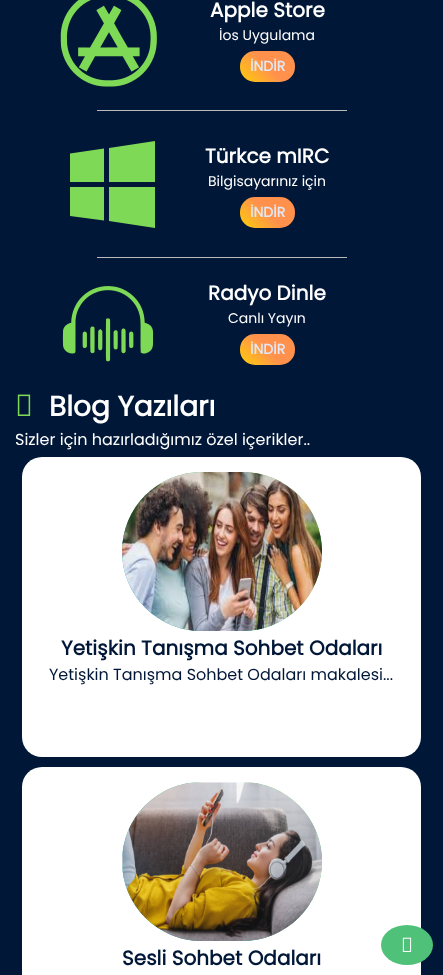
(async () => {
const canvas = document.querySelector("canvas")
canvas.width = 443
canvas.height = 975
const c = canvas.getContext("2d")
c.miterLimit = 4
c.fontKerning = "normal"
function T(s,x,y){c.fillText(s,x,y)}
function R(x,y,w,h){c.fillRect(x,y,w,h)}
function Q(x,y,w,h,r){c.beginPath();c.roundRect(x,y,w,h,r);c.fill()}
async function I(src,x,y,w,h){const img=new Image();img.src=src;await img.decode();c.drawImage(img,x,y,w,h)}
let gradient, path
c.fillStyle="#001737"
R(0,0,443,975)
await I("1.png",60,0,97,87)
c.font="bold 20px Poppins"
c.fillStyle="#fff"
T("Apple Store",210,17)
c.font="14px Poppins"
T("İos Uygulama",219,40)
gradient = c.createLinearGradient(246,88,289,45)
gradient.addColorStop(0,"#ffce08")
gradient.addColorStop(.5,"#ff914d")
gradient.addColorStop(1,"#ff914d")
c.fillStyle = gradient
Q(240,51,55,31,15)
c.font="bold 14px Poppins"
c.fillStyle="#dfe8f7"
T("İNDİR",250,71)
c.fillStyle="#b9b9b9"
R(97,110,250,1)
c.fillStyle="#7ed957"
path = new Path2D("M70 153.5l34-5v33.5h-34z")
c.fill(path)
path = new Path2D("M109 148l46-7v41h-46z")
c.fill(path)
path = new Path2D("M70 187h34v33.5l-34-4.5z")
c.fill(path)
path = new Path2D("M109 187h46v41l-46-7z")
c.fill(path)
c.font="bold 20px Poppins"
c.fillStyle="#fff"
T("Türkce mIRC",205,163)
c.font="14px Poppins"
T("Bilgisayarınız için",208,186)
gradient = c.createLinearGradient(246,234,289,191)
gradient.addColorStop(0,"#ffce08")
gradient.addColorStop(.5,"#ff914d")
gradient.addColorStop(1,"#ff914d")
c.fillStyle = gradient
Q(240,197,55,31,15)
c.font="bold 14px Poppins"
c.fillStyle="#dfe8f7"
T("İNDİR",250,217)
c.fillStyle="#b9b9b9"
R(97,257,250,1)
await I("2.png",62,286,92,76)
c.font="bold 20px Poppins"
c.fillStyle="#fff"
T("Radyo Dinle",208,300)
c.font="14px Poppins"
T("Canlı Yayın",228,323)
gradient = c.createLinearGradient(246,371,289,328)
gradient.addColorStop(0,"#ffce08")
gradient.addColorStop(.5,"#ff914d")
gradient.addColorStop(1,"#ff914d")
c.fillStyle = gradient
Q(240,334,55,31,15)
c.font="bold 14px Poppins"
c.fillStyle="#dfe8f7"
T("İNDİR",250,354)
await I("3.png",17,394,14,22)
c.font="bold 28px Poppins"
c.fillStyle="#fff"
T("Blog Yazıları",49,416)
c.font="16px Poppins"
T("Sizler için hazırladığımız özel içerikler..",15,445)
Q(22,457,399,300,20)
gradient = c.createLinearGradient(132,641,312,462)
gradient.addColorStop(0,"#0097b2")
gradient.addColorStop(1,"#7ed957")
c.fillStyle = gradient
Q(122,472,200,159,79.5)
await I("4.png",122,472,200,159)
c.font="bold 20px Poppins"
c.fillStyle="#001737"
T("Yetişkin Tanışma Sohbet Odaları",61,655)
c.font="16px Poppins"
T("Yetişkin Tanışma Sohbet Odaları makalesi...",49,680)
c.fillStyle="#fff"
Q(22,767,399,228,20)
gradient = c.createLinearGradient(132,951,312,772)
gradient.addColorStop(0,"#0097b2")
gradient.addColorStop(1,"#7ed957")
c.fillStyle = gradient
Q(122,782,200,159,79.5)
await I("5.png",122,782,200,159)
c.font="bold 20px Poppins"
c.fillStyle="#001737"
T("Sesli Sohbet Odaları",122,965)
c.fillStyle="#4fc179"
c.beginPath()
c.ellipse(407,945,26,20,0,0,7)
c.fill()
await I("6.png",402,937,10,15)
})()
